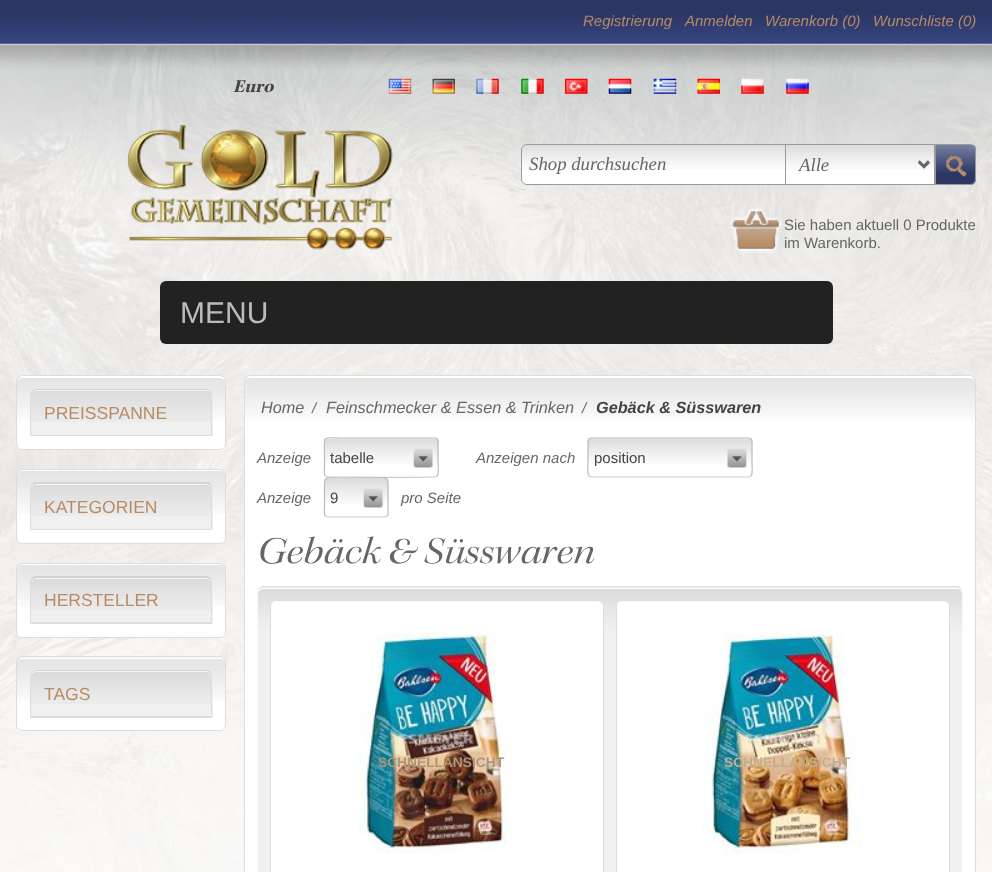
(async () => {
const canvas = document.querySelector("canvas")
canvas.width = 992
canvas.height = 872
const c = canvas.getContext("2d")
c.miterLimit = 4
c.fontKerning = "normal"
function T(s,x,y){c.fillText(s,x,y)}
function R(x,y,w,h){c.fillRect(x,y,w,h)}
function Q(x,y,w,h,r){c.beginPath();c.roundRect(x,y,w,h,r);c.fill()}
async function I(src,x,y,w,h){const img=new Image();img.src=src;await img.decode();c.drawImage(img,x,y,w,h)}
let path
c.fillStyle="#fff"
R(0,0,992,872)
await I("1.png",0,0,992,872)
c.font="italic 15px Liberation Sans"
c.fillStyle="#b68c65"
T("Registrierung",583,26)
T("Anmelden",685,26)
T("Warenkorb (0)",765,26)
T("Wunschliste (0)",873,26)
c.font="italic bold 18.75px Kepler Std"
c.fillStyle="#444"
T("Euro",233,92)
await I("2.png",388,78,24,16)
await I("3.png",432,78,23,16)
await I("4.png",476,78,23,16)
await I("5.png",521,78,23,16)
await I("6.png",565,78,23,16)
await I("7.png",608,78,24,16)
await I("8.png",653,78,24,16)
await I("9.png",697,78,23,16)
await I("10.png",741,78,23,16)
await I("11.png",786,78,23,16)
await I("12.png",127,125,266,125)
c.fillStyle="#fff"
c.beginPath()
c.roundRect(521,144,265,41,[6,0,0,6])
c.fill()
await I("13.png",521,144,264,25)
c.beginPath()
c.roundRect(521.5,144.5,264,40,[5.5,0,0,5.5])
c.strokeStyle="#999"
c.stroke()
c.font="italic 18.75px Liberation Serif"
c.fillStyle="#666"
T("Shop durchsuchen",529,170)
c.fillStyle="#fff"
R(786,170,148,14)
await I("14.png",786,145,148,25)
c.strokeRect(785.5,144.5,149,40)
path = new Path2D("M919 162l5 5l5-5")
c.strokeStyle="#666"
c.lineWidth=2.5
c.stroke(path)
c.fillStyle="#666"
T("Alle",799,171)
await I("15.png",936,145,40,40)
c.beginPath()
c.roundRect(935.5,144.5,40,40,[0,5.5,5.5,0])
c.strokeStyle="#999"
c.lineWidth=1
c.stroke()
await I("16.png",730,208,53,45)
c.font="15px Liberation Sans"
T("Sie haben aktuell 0 Produkte",784,230)
T("im Warenkorb.",784,248)
c.fillStyle="#222"
Q(160,281,673,63,6)
c.font="30px Liberation Sans"
c.fillStyle="#bbb"
T("MENU",180,323)
c.fillStyle="#fff"
Q(16,375,210,75,6)
await I("17.png",16,376,210,44)
path = new Path2D("M22 378h198c3 0 5 2 5 4v-1c0-3-2-5-5-5h-197c-3 0-5 2-5 5v1c0-2 2-4 4-4z")
c.fill(path)
c.beginPath()
c.roundRect(16.5,375.5,209,74,5.5)
c.strokeStyle="#ddd"
c.stroke()
c.fillStyle="#f0f0f0"
c.beginPath()
c.roundRect(30,389,183,47,[6,6,0,0])
c.fill()
await I("18.png",30,390,183,32)
c.fillStyle="#f6f6f6"
path = new Path2D("M36 391h170c3 0 5 2 5 5c0-3-1-5-4-6h-171c-3 0-5 3-5 6c0-3 2-5 5-5z")
c.fill(path)
c.fillStyle="#d3d3d3"
path = new Path2D("M36 389c-1 0-3 1-4 2h1l2-1h171c1 0 3 0 4 2v-1c-1-1-2-2-4-2z")
c.fill(path)
c.fillStyle="#ddd"
path = new Path2D("M212 436v-41c0-2-1-3-2-4v1c1 0 1 2 1 3v40z")
c.fill(path)
path = new Path2D("M212 436h-182l1-1h180z")
c.fill(path)
path = new Path2D("M30 395v41l1-1v-40c0-2 1-3 2-4h-1c-1 1-2 2-2 4z")
c.fill(path)
c.font="17.5px Liberation Sans"
c.fillStyle="#b68c65"
T("PREISSPANNE",44,419)
c.fillStyle="#fff"
Q(16,469,210,75,6)
await I("19.png",16,470,210,44)
path = new Path2D("M22 471h198c3 0 5 2 5 5v-1c0-3-2-5-5-5h-197c-3 0-5 2-5 5v1c0-3 2-5 4-5z")
c.fill(path)
c.beginPath()
c.roundRect(16.5,469.5,209,74,5.5)
c.stroke()
c.fillStyle="#f0f0f0"
c.beginPath()
c.roundRect(30,483,183,47,[6,6,0,0])
c.fill()
await I("20.png",30,483,183,33)
c.fillStyle="#f6f6f6"
path = new Path2D("M36 485h170c3 0 5 2 5 5c0-3-1-5-4-6h-171c-3 0-5 3-5 6c0-3 2-5 5-5z")
c.fill(path)
c.fillStyle="#d3d3d3"
path = new Path2D("M36 484l-3 1l-1-1l2-2h175l2 2l-1 1c-1-1-2-1-4-1z")
c.fill(path)
c.fillStyle="#ddd"
path = new Path2D("M211 484c1 2 1 3 1 5v41l-1-2v-39c0-1-1-3-1-4z")
c.fill(path)
path = new Path2D("M212 530l-1-2v1h-180l-1 1z")
c.fill(path)
path = new Path2D("M30 530l1-1v-40c0-2 1-3 2-4l-1-1c-1 1-2 3-2 5z")
c.fill(path)
c.fillStyle="#b68c65"
T("KATEGORIEN",44,513)
c.fillStyle="#fff"
Q(16,563,210,75,6)
await I("21.png",16,563,210,44)
path = new Path2D("M22 565h198c3 0 5 2 5 5v-1c0-3-2-5-5-5h-197c-3 0-5 2-5 5v1c0-3 2-5 4-5z")
c.fill(path)
c.beginPath()
c.roundRect(16.5,563.5,209,74,5.5)
c.stroke()
c.fillStyle="#f0f0f0"
c.beginPath()
c.roundRect(30,576,183,48,[6,6,0,0])
c.fill()
await I("22.png",30,577,183,33)
c.fillStyle="#f6f6f6"
path = new Path2D("M36 579h170c3 0 5 2 5 5c0-3-1-5-4-6h-171c-3 0-5 3-5 6c0-3 2-5 5-5z")
c.fill(path)
c.fillStyle="#d3d3d3"
path = new Path2D("M36 578l-3 1l-1-1l2-2h174l3 2l-1 1l-4-1z")
c.fill(path)
c.fillStyle="#ddd"
path = new Path2D("M211 578c1 1 1 3 1 4v41l-1-1v-40c0-1-1-2-1-3z")
c.fill(path)
path = new Path2D("M212 624h-182l2-2h179z")
c.fill(path)
path = new Path2D("M30 624l2-2h-1v-40c0-1 1-2 2-3l-1-1c-1 1-2 3-2 4z")
c.fill(path)
c.fillStyle="#b68c65"
T("HERSTELLER",44,606)
c.fillStyle="#fff"
Q(16,656,210,75,6)
await I("23.png",16,657,210,44)
path = new Path2D("M22 659h198c3 0 5 2 5 5v-1c0-3-2-5-5-5h-197c-3 0-5 2-5 5v1c0-3 2-5 4-5z")
c.fill(path)
c.beginPath()
c.roundRect(16.5,656.5,209,74,5.5)
c.stroke()
c.fillStyle="#f0f0f0"
c.beginPath()
c.roundRect(30,670,183,48,[6,6,0,0])
c.fill()
await I("24.png",30,671,183,33)
c.fillStyle="#f6f6f6"
path = new Path2D("M36 672h170c3 0 5 3 5 6v-2c0-3-2-5-5-5h-170c-3 0-5 2-5 5v2c0-3 2-6 5-6z")
c.fill(path)
c.fillStyle="#d3d3d3"
path = new Path2D("M36 670c-2 0-3 1-4 2l3-1h171c1 0 3 1 4 2l1-1c-1-1-3-2-5-2z")
c.fill(path)
c.fillStyle="#ddd"
path = new Path2D("M211 672c1 1 1 3 1 4v41l-1-1v-40c0-1 0-3-1-3z")
c.fill(path)
path = new Path2D("M212 718h-182l2-2h179z")
c.fill(path)
path = new Path2D("M30 718l2-2h-1v-40c0-2 1-3 1-4c-1 1-2 2-2 4z")
c.fill(path)
c.fillStyle="#b68c65"
T("TAGS",44,700)
c.fillStyle="#fff"
Q(244,375,732,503,6)
await I("25.png",244,376,732,44)
path = new Path2D("M250 378h720c3 0 5 2 5 4c0-3-2-6-5-6h-720c-3 0-5 3-5 6c0-2 2-4 5-4z")
c.fill(path)
c.beginPath()
c.roundRect(244.5,375.5,731,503,5.5)
c.stroke()
c.font="italic 16.25px Liberation Sans"
c.fillStyle="#666"
T("Home",261,413)
c.font="italic 15px Liberation Sans"
T("/",312,413)
c.font="italic 16.25px Liberation Sans"
T("Feinschmecker & Essen & Trinken",326,413)
c.font="italic 15px Liberation Sans"
T("/",582,413)
c.font="italic bold 16.25px Liberation Sans"
c.fillStyle="#444"
T("Gebäck & Süsswaren",596,413)
c.font="italic 15px Liberation Sans"
c.fillStyle="#666"
T("Anzeige",257,463)
await I("26.png",324,438,115,26)
path = new Path2D("M437 476l-.5 .5c-2 1.5-81.5 .5-91 .5h-18l-2-1")
c.strokeStyle="#ccc"
c.lineWidth=1.2
c.stroke(path)
path = new Path2D("M325.5 476c-2-2-1-6-1-7.5v-11c0-24-4.5-19.5 21-19.5h89.5c4.5 0 3 6.5 3 8.5v16.5c0 2.5 1.5 11-1 13")
c.strokeStyle="#bbb"
c.stroke(path)
await I("27.png",413,448,20,20)
c.font="15px Liberation Sans"
c.fillStyle="#444"
T("tabelle",330,463)
c.font="italic 15px Liberation Sans"
c.fillStyle="#666"
T("Anzeigen nach",476,463)
await I("28.png",587,438,166,26)
path = new Path2D("M751 476l-2 1h-158l-2-1")
c.strokeStyle="#ccc"
c.stroke(path)
path = new Path2D("M589 476c-2-2-1-10.5-1-13v-16.5c0-2-1-8.5 3-8.5h158c4 0 3 6.5 3 8.5v16.5c0 2.5 1 11-1 13")
c.strokeStyle="#bbb"
c.stroke(path)
await I("29.png",727,448,20,20)
c.font="15px Liberation Sans"
c.fillStyle="#444"
T("position",594,463)
c.font="italic 15px Liberation Sans"
c.fillStyle="#666"
T("Anzeige",257,503)
await I("30.png",324,478,65,26)
path = new Path2D("M387 516l-1.5 1h-58.5l-1.5-1")
c.strokeStyle="#ccc"
c.stroke(path)
path = new Path2D("M325.5 516c-2-2-1-6-1-7.5v-22c0-10.5 .5-8.5 12.5-8.5h38.5c12 0 12.5-2 12.5 8.5v22c0 1.5 1 5.5-1 7.5")
c.strokeStyle="#bbb"
c.stroke(path)
await I("31.png",363,488,20,20)
c.font="15px Liberation Sans"
c.fillStyle="#444"
T("9",330,503)
c.font="italic 15px Liberation Sans"
c.fillStyle="#666"
T("pro Seite",401,503)
c.font="italic 37.5px Kepler Std"
T("Gebäck & Süsswaren",257,563)
c.fillStyle="#f0f0f0"
path = new Path2D("M264 588h692c4 0 6 2 6 4v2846h-698c-4 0-6-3-6-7v-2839c0-2 2-4 6-4z")
c.fill(path)
await I("32.png",257,587,706,46)
c.fillStyle="#fff"
path = new Path2D("M264 589h692c4 0 6 2 6 5v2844v-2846c0-2-2-4-6-4h-692c-4 0-6 2-6 4v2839v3v-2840c0-3 3-5 6-5z")
c.fill(path)
c.fillStyle="#ddd"
R(261,586,699,1)
c.fillStyle="#fff"
c.beginPath()
c.roundRect(270.5,600.5,333,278,5.5)
c.fill()
c.strokeStyle="#ddd"
c.lineWidth=1
c.stroke()
await I("33.png",357,633,159,221)
c.font="bold 13.75px Liberation Sans"
c.fillStyle="#aa957c"
T("SCHNELLANSICHT",378,767)
c.fillStyle="#fff"
c.beginPath()
c.roundRect(616.5,600.5,333,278,5.5)
c.fill()
c.stroke()
await I("34.png",703,633,159,221)
c.fillStyle="#c2ae8c"
T("SCHNELLANSICHT",724,767)
})()
